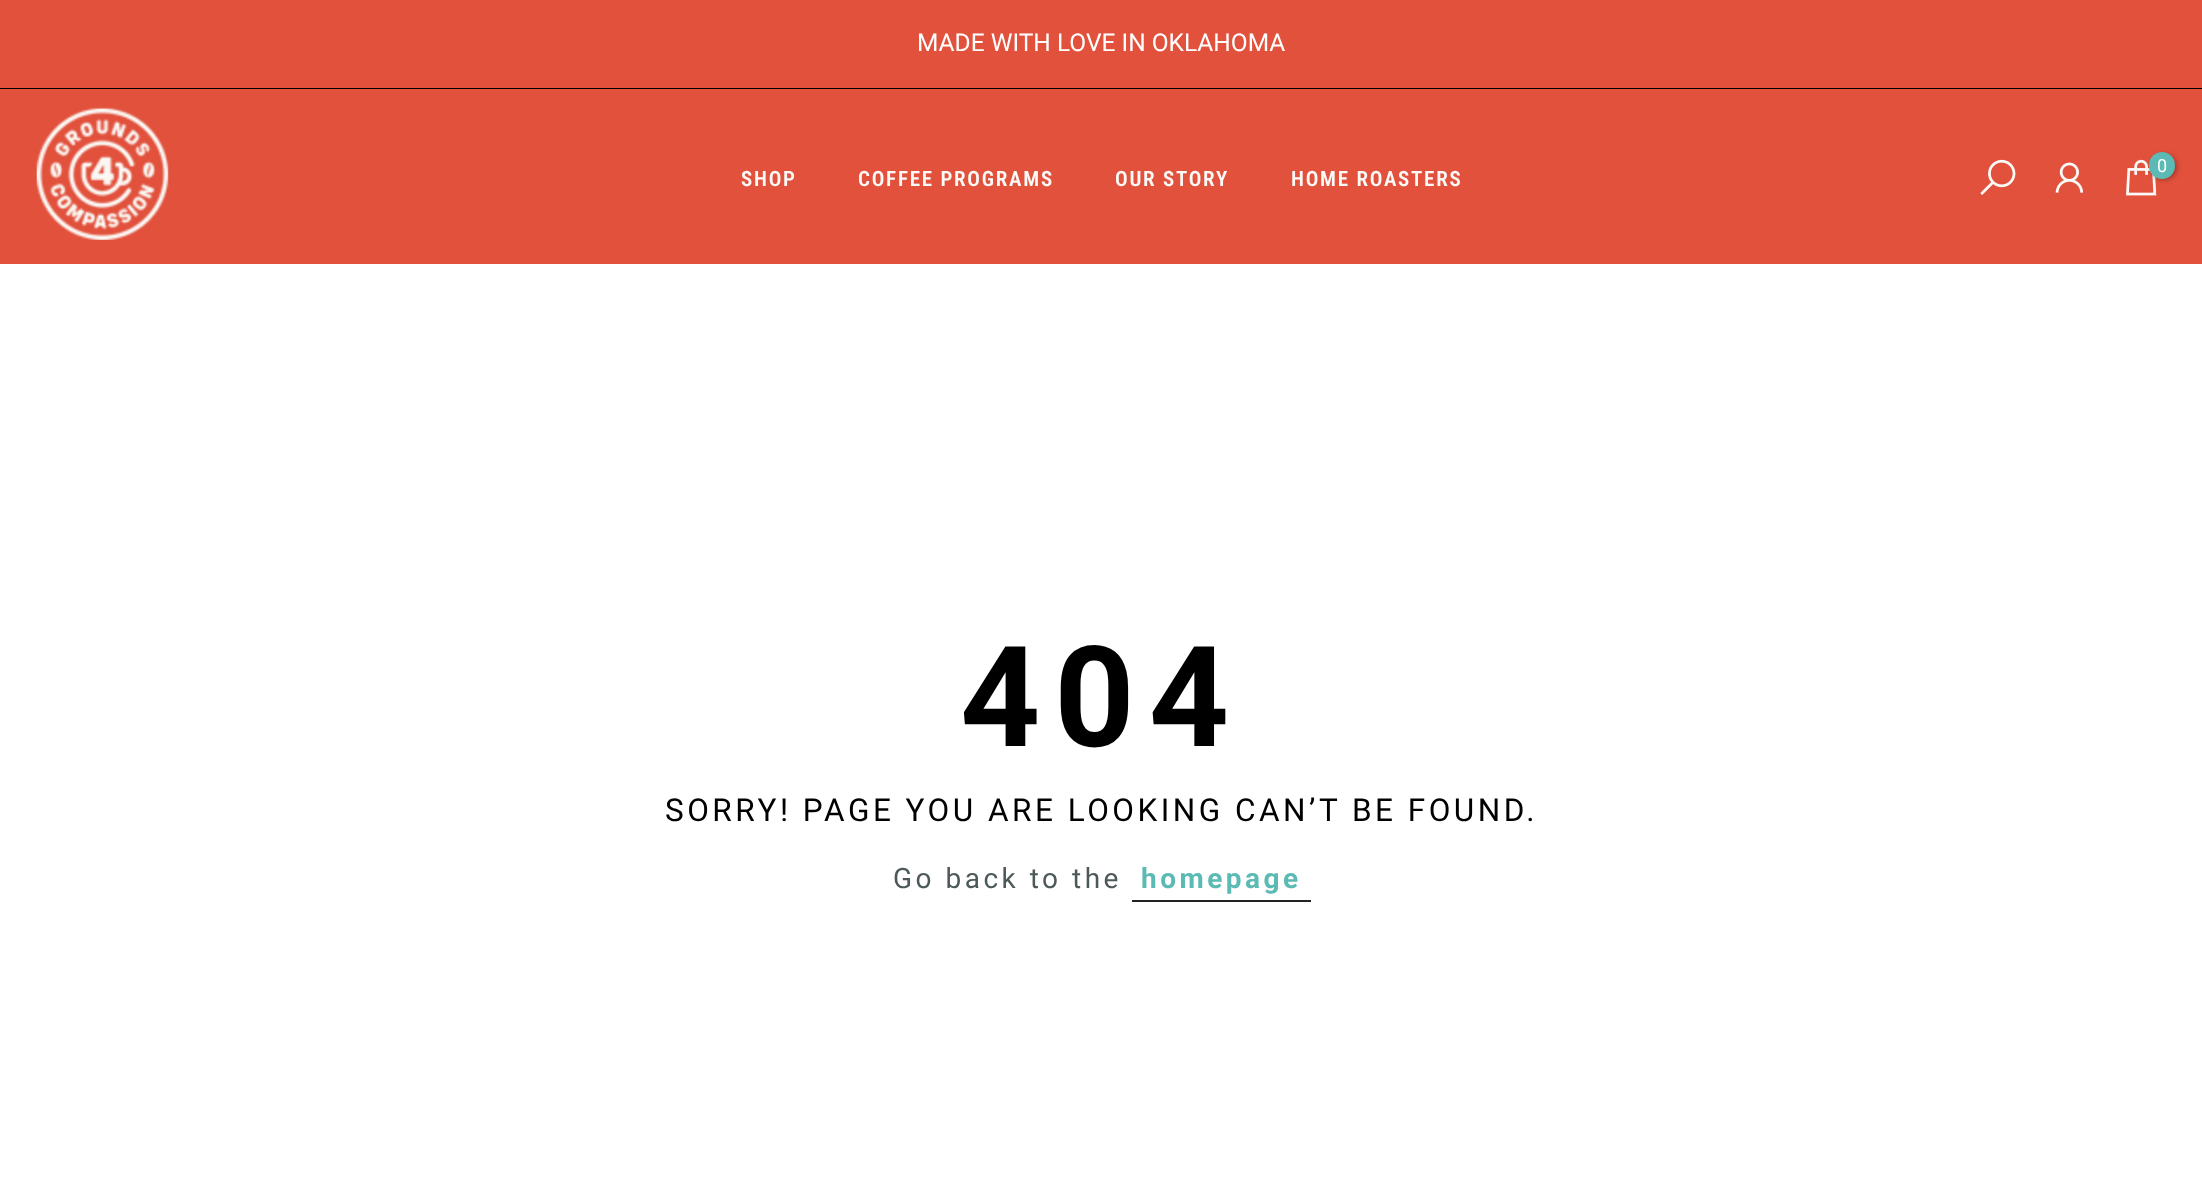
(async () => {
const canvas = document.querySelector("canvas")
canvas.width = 2202
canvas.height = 1184
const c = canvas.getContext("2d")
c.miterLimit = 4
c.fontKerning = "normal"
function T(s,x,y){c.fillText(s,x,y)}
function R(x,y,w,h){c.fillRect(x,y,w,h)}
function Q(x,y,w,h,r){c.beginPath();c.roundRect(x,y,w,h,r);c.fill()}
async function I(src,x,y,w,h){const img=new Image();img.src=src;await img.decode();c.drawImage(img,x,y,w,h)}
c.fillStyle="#fff"
R(0,0,2202,1184)
c.fillStyle="#e2513c"
R(0,0,2202,88)
c.fillStyle="#000"
R(0,88,2202,1)
c.font="24.5px Roboto"
c.fillStyle="#fff"
T("MADE WITH LOVE IN OKLAHOMA",917,51)
c.fillStyle="#e2513c"
R(0,89,2202,175)
await I("1.png",36,107,133,133)
await I("2.png",1980,159,36,36)
await I("3.png",2055,162,28,31)
await I("4.png",2126,159,31,37)
c.fillStyle="#0000004d"
c.filter="blur(2.5px)"
c.beginPath()
c.roundRect(2151,154,26,26,13)
c.fill()
c.filter="none"
c.fillStyle="#5bbab3"
Q(2149,152,26,27,13)
c.font="18px Roboto"
c.fillStyle="#fff"
T("0",2157,172)
c.letterSpacing="1.75px"
c.font="600 21px Roboto Condensed"
c.fillStyle="#fbfaf7"
T("SHOP",741,186)
T("COFFEE PROGRAMS",858,186)
T("OUR STORY",1115,186)
T("HOME ROASTERS",1291,186)
c.letterSpacing="14px"
c.font="bold 140px Roboto"
c.fillStyle="#000"
T("404",960,746)
c.letterSpacing="3.5px"
c.font="31.5px Roboto"
T("SORRY! PAGE YOU ARE LOOKING CAN’T BE FOUND.",665,821)
c.font="28px Roboto"
c.fillStyle="#4d5959"
T("Go back to the",893,888)
c.font="bold 28px Roboto"
c.fillStyle="#5bbab3"
T("homepage",1141,888)
c.fillStyle="#222"
R(1132,900,179,2)
})()
